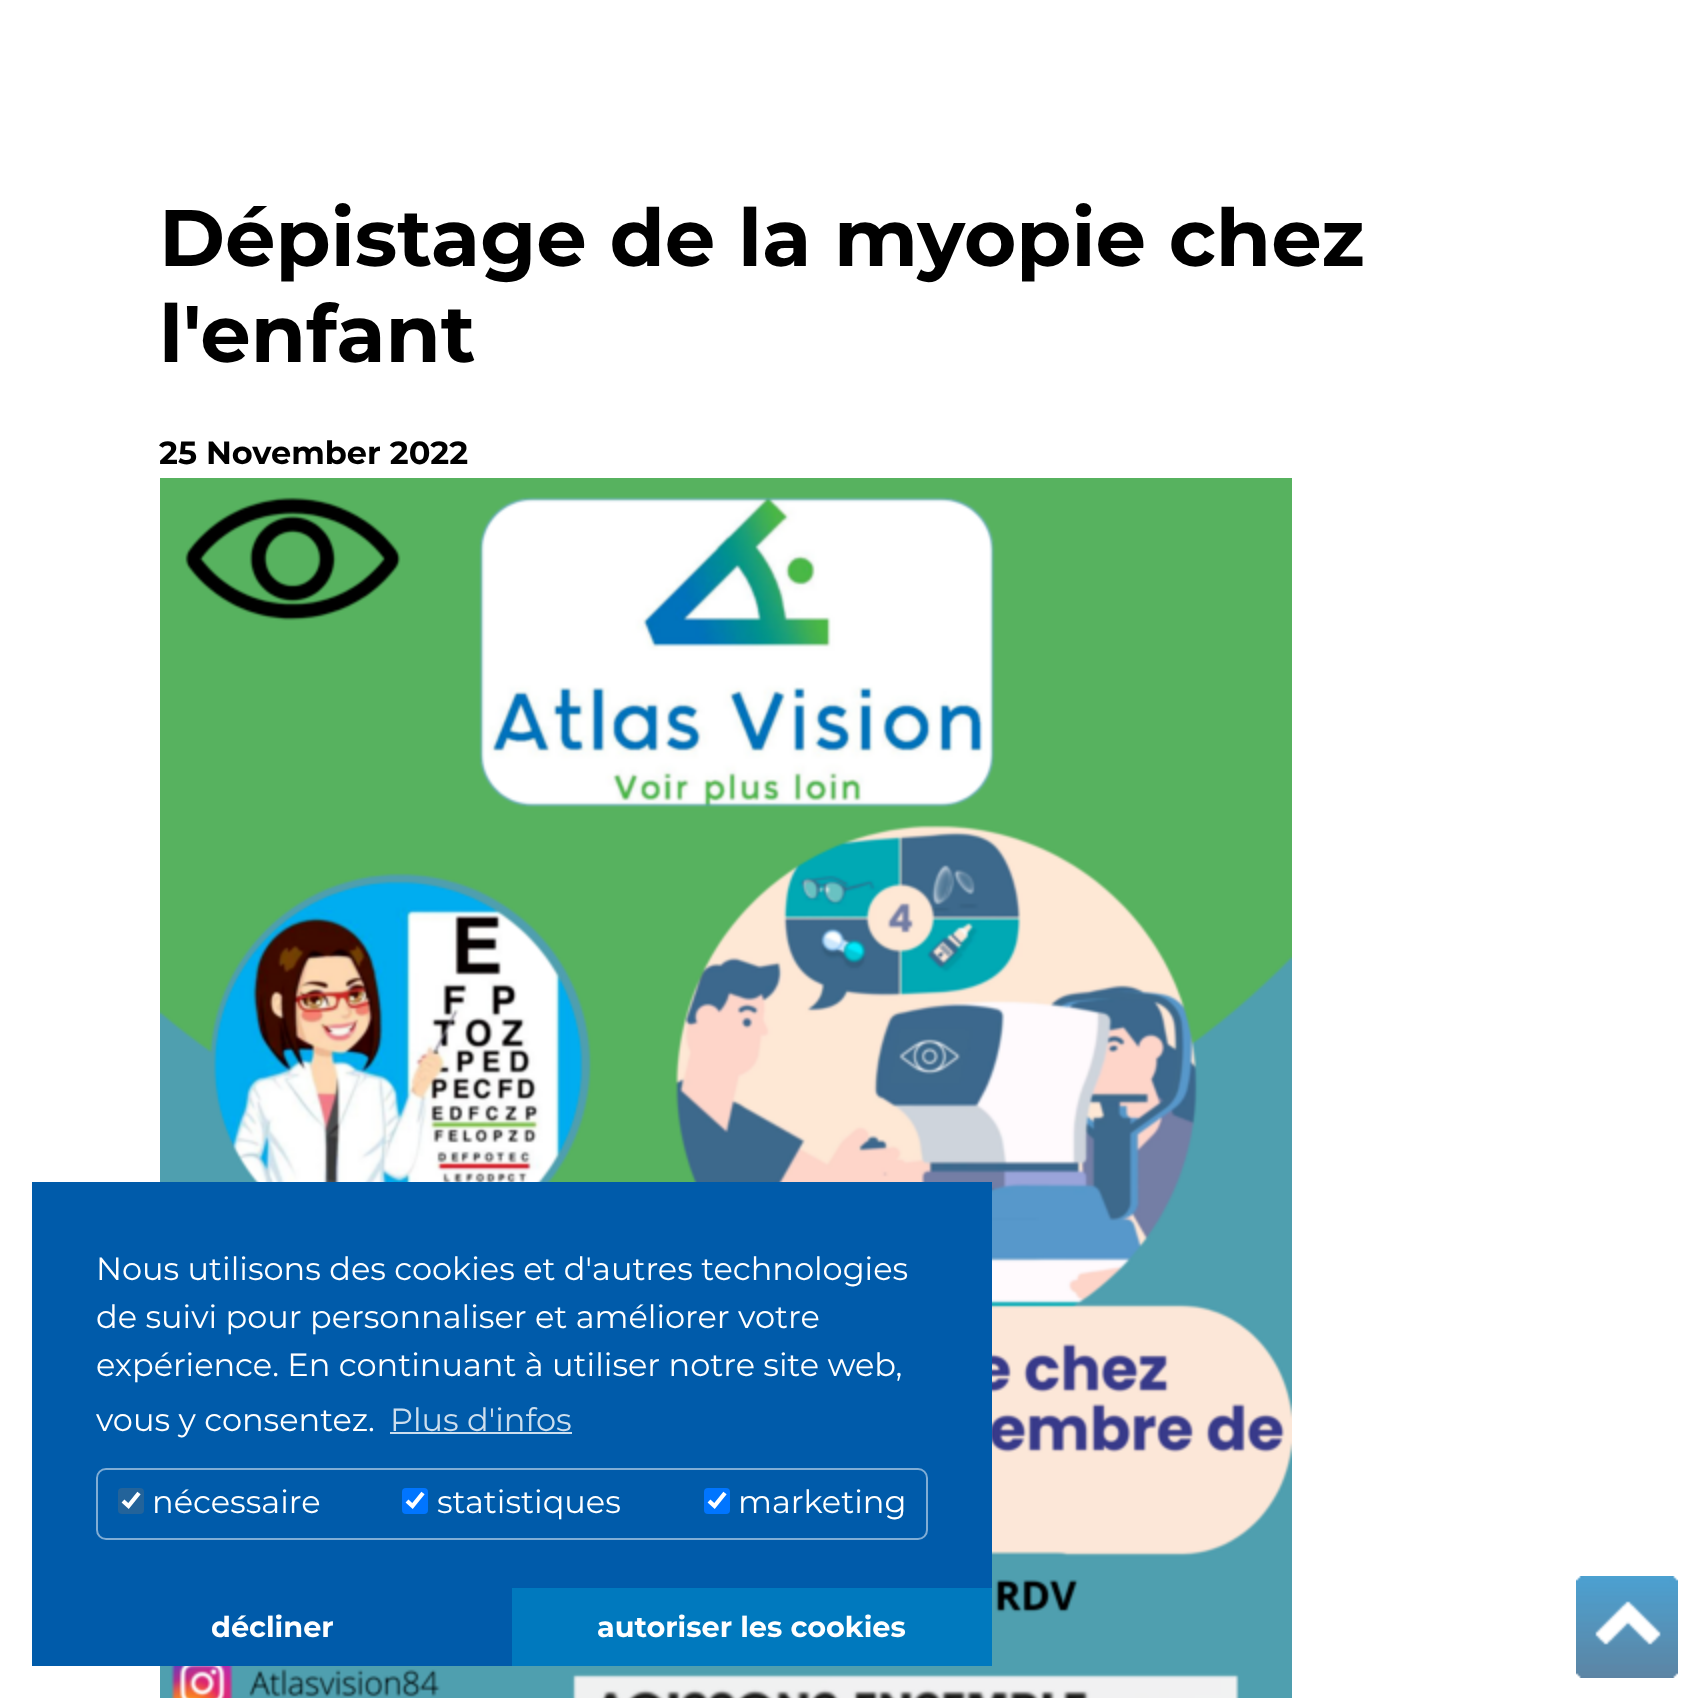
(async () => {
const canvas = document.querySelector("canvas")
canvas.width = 1698
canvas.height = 1698
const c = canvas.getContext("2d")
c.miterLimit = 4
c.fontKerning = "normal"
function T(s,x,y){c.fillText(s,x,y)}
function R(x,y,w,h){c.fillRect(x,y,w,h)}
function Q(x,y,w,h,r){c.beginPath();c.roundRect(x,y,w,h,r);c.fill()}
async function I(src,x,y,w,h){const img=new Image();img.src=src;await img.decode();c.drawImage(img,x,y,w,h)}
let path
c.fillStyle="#fff"
R(0,0,1698,1698)
c.font="bold 80px Montserrat"
c.fillStyle="#000"
T("Dépistage de la myopie chez",159,266)
T("l'enfant",159,362)
c.font="bold 32px Montserrat"
T("25 November 2022",159,464)
await I("1.png",160,478,1132,1220)
c.fillStyle="#005baa"
R(32,1182,960,484)
c.font="32px Montserrat"
c.fillStyle="#fff"
T("Nous utilisons des cookies et d'autres technologies",96,1280)
T("de suivi pour personnaliser et améliorer votre",96,1328)
T("expérience. En continuant à utiliser notre site web,",96,1376)
T("vous y consentez.",96,1431)
c.fillStyle="#ccdeee"
T("Plus d'infos",390,1431)
R(390,1432,182,2)
c.beginPath()
c.roundRect(97,1469,830,70,9)
c.strokeStyle="#80add5"
c.lineWidth=2
c.stroke()
c.fillStyle="#23639a"
Q(118,1488,26,26,4)
path = new Path2D("M123 1501l5.5 5l10.5-13")
c.strokeStyle="#fff"
c.lineWidth=4.2
c.stroke(path)
c.fillStyle="#fff"
T("nécessaire",152,1513)
c.fillStyle="#0075ff"
Q(402,1488,26,26,4)
path = new Path2D("M407 1501l5.5 5l10.5-13")
c.stroke(path)
c.fillStyle="#fff"
T("statistiques",437,1513)
c.fillStyle="#0075ff"
Q(704,1488,26,26,4)
path = new Path2D("M709 1501l5.5 5l10.5-13")
c.stroke(path)
c.fillStyle="#fff"
T("marketing",738,1513)
c.font="bold 28.75px Montserrat"
T("décliner",211,1637)
c.fillStyle="#0079be"
R(512,1588,480,78)
c.fillStyle="#fff"
T("autoriser les cookies",597,1637)
await I("2.png",1576,1576,102,102)
})()
